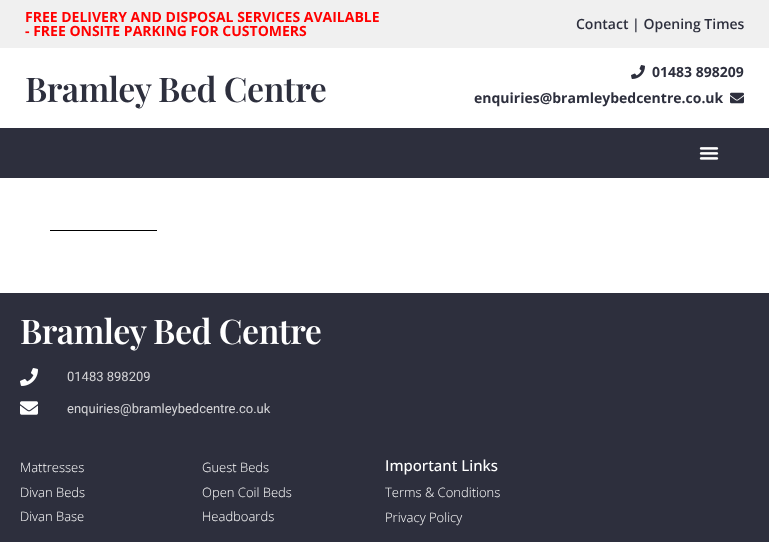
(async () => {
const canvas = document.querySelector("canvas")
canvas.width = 769
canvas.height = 542
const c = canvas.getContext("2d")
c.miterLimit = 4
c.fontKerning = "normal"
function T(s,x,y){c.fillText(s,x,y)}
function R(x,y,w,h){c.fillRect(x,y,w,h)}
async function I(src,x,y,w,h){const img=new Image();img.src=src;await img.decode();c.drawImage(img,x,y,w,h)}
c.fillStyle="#fff"
R(0,0,769,542)
c.fillStyle="#f0f0f0"
R(0,0,769,48)
c.font="bold 14px Open Sans"
c.fillStyle="#f00"
T("FREE DELIVERY AND DISPOSAL SERVICES AVAILABLE",25,22)
T("- FREE ONSITE PARKING FOR CUSTOMERS",25,36)
c.font="600 14px Open Sans"
c.fillStyle="#2d2f3d"
T("Contact | Opening Times",576,29)
c.letterSpacing="-0.5px"
c.font="600 34px Playfair Display"
T("Bramley Bed Centre",25,102)
await I("1.png",631,65,14,14)
c.letterSpacing="0px"
c.font="bold 14px Open Sans"
T("01483 898209",652,77)
T("enquiries@bramleybedcentre.co.uk",474,103)
await I("2.png",730,92,14,12)
R(0,128,769,50)
await I("3.png",699,147,20,13)
c.fillStyle="#000"
R(50,230,107,1)
c.fillStyle="#2d2f3d"
R(0,293,769,249)
c.letterSpacing="-0.5px"
c.font="600 34px Playfair Display"
c.fillStyle="#fff"
T("Bramley Bed Centre",20,344)
await I("4.png",20,368,18,18)
c.letterSpacing="0px"
c.font="13px Roboto"
c.fillStyle="#d5d5d8"
T("01483 898209",67,381)
await I("5.png",20,401,18,14)
T("enquiries@bramleybedcentre.co.uk",67,413)
c.font="300 13px Open Sans"
c.fillStyle="#fff"
T("Mattresses",20,472)
T("Divan Beds",20,497)
T("Divan Base",20,521)
T("Guest Beds",202,472)
T("Open Coil Beds",202,497)
T("Headboards",202,521)
c.font="500 15px Open Sans"
T("Important Links",385,471)
c.font="300 13px Open Sans"
T("Terms & Conditions",385,497)
T("Privacy Policy",385,522)
})()
